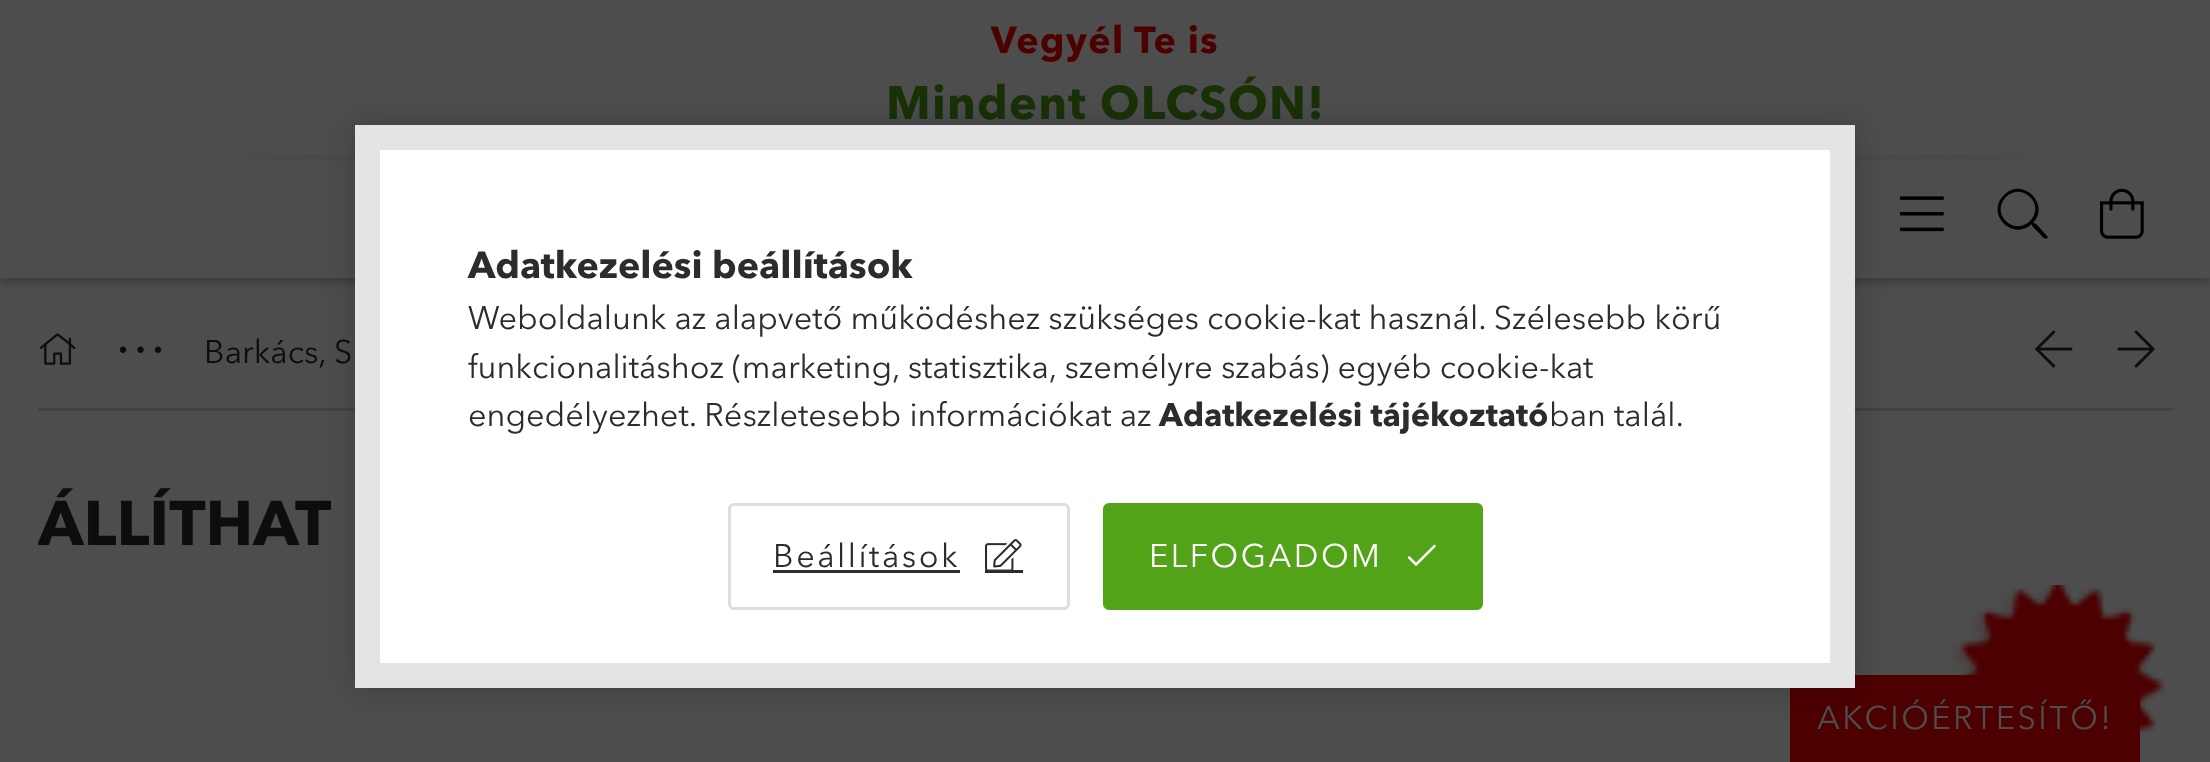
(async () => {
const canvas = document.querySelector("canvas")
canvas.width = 2210
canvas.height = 762
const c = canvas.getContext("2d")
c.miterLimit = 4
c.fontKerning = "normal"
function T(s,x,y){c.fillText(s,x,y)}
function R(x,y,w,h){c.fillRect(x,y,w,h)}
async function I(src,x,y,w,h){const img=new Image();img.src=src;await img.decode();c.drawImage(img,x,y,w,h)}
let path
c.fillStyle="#4d4d4d"
R(0,0,2210,762)
c.fillStyle="#00000033"
c.filter="blur(4px)"
c.beginPath()
c.rect(0,5,2210,278)
c.fill()
c.filter="none"
c.fillStyle="#4d4d4d"
R(0,1,2210,277)
c.letterSpacing="1.25px"
c.font="bold 37.5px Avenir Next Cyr"
c.fillStyle="#4d0000"
T("Vegyél Te is",991,53)
c.font="bold 46.75px Avenir Next Cyr"
c.fillStyle="#193107"
T("Mindent OLCSÓN!",886,119)
await I("1.png",241,155,1790,6)
await I("2.png",1900,196,44,36)
c.fillStyle="#000"
path = new Path2D("M2047 236l1 1c-2 5-7-2-8-3l-6-6c-2-2-2-2-2-4c-20 18-47-11-28-29c18-19 47 9 29 28c3 0 4 2 6 4zm-41-15c16 16 40-8 24-24c-16-16-40 8-24 24z")
c.fill(path)
await I("3.png",2100,188,44,51)
await I("4.png",39,333,37,32)
c.letterSpacing="7.5px"
c.font="bold 40px Liberation Serif"
c.fillStyle="#0d0d0d"
T("∙∙∙",118,363)
c.letterSpacing="0px"
c.font="32.5px Avenir Next Cyr"
T("Barkács, S",204,363)
await I("5.png",2035,330,38,38)
await I("6.png",2117,330,38,38)
c.fillStyle="#424242"
R(38,408,2135,3)
c.save()
c.beginPath()
c.rect(38,485,1202,75)
c.clip()
c.font="bold 62.5px Avenir Next Cyr"
c.fillStyle="#0d0d0d"
T("ÁLLÍTHAT",38,545)
c.restore()
await I("7.png",1950,585,215,151)
c.fillStyle="#4d0000"
R(1790,675,350,87)
c.fillStyle="#00000033"
c.filter="blur(15px)"
c.beginPath()
c.rect(355,125,1500,563)
c.fill()
c.filter="none"
c.fillStyle="#fff"
c.beginPath()
c.rect(367.5,137.5,1475,538)
c.fill()
c.strokeStyle="#e4e4e4"
c.lineWidth=25
c.stroke()
c.font="bold 37.5px Avenir Next Cyr"
c.fillStyle="#2c2c2c"
T("Adatkezelési beállítások",468,278)
c.font="32.5px Avenir Next Cyr"
T("Weboldalunk az alapvető működéshez szükséges cookie-kat használ. Szélesebb körű",468,329)
T("funkcionalitáshoz (marketing, statisztika, személyre szabás) egyéb cookie-kat",468,378)
T("engedélyezhet. Részletesebb információkat az",468,426)
c.font="bold 32.5px Avenir Next Cyr"
T("Adatkezelési tájékoztató",1159,426)
c.font="32.5px Avenir Next Cyr"
T("ban talál.",1549,426)
c.beginPath()
c.roundRect(729.5,504.5,339,104,4.5)
c.strokeStyle="#ddd"
c.lineWidth=3
c.stroke()
c.letterSpacing="2.5px"
T("Beállítások",773,567)
R(773,570,187,3)
await I("8.png",985,539,37,31)
R(985,570,38,3)
c.fillStyle="#53a318"
c.beginPath()
c.roundRect(1104.5,504.5,377,104,4.5)
c.fill()
c.strokeStyle="#53a318"
c.stroke()
c.fillStyle="#fff"
T("ELFOGADOM",1149,567)
await I("9.png",1407,544,29,22)
c.fillStyle="#4d4d4d"
T("AKCIÓÉRTESÍTŐ!",1817,729)
})()
